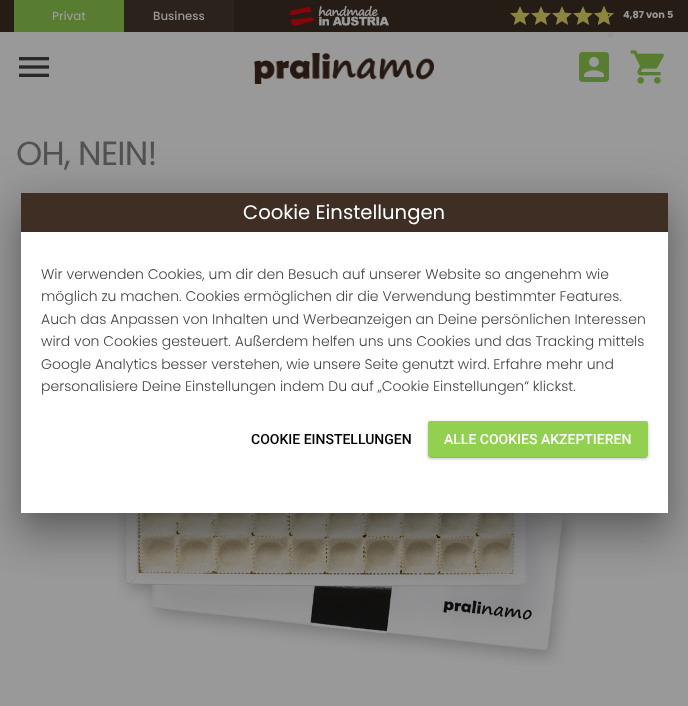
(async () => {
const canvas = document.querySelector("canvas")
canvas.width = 688
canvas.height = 706
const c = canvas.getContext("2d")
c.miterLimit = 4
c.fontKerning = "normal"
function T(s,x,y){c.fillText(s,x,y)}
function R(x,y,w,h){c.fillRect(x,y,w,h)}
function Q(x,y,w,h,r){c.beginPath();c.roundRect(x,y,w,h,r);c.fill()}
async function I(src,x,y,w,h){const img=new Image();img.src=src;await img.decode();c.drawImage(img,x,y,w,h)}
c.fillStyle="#999"
R(0,0,688,706)
c.fillStyle="#251c16"
R(0,0,688,32)
c.fillStyle="#587d30"
R(14,0,110,32)
c.font="500 11.75px Poppins"
c.fillStyle="#999"
T("Privat",52,20)
c.fillStyle="#2b221c"
R(124,0,110,32)
c.fillStyle="#999"
T("Business",153,20)
await I("1.png",289,6,100,20)
await I("2.png",510,6,20,19)
await I("2.png",531,6,20,19)
await I("2.png",552,6,20,19)
await I("2.png",573,6,20,19)
await I("2.png",594,6,20,19)
c.fillStyle="#251c16"
R(608,7,5,30)
c.fillStyle="#939392"
R(608,32,5,5)
await I("3.png",594,6,20,19)
c.font="bold 9.75px Poppins"
c.fillStyle="#999"
T("4,87 von 5",623,18)
await I("4.png",19,57,30,20)
await I("5.png",579,52,30,30)
await I("6.png",630,50,34,34)
await I("7.png",254,53,180,31)
c.letterSpacing="-0.75px"
c.font="33.5px Poppins"
c.fillStyle="#525252"
T("OH, NEIN!",16,165)
await I("8.png",117,513,459,153)
c.fillStyle="#00000033"
c.filter="blur(19px)"
c.beginPath()
c.rect(18,214,653,326)
c.fill()
c.filter="none"
c.fillStyle="#0000001f"
c.filter="blur(7.5px)"
c.beginPath()
c.rect(28,211,633,306)
c.fill()
c.filter="none"
c.fillStyle="#00000024"
c.filter="blur(23px)"
c.beginPath()
c.rect(13,194,663,336)
c.fill()
c.filter="none"
c.fillStyle="#fff"
R(21,232,647,281)
c.fillStyle="#3e2e24"
R(21,193,647,39)
c.letterSpacing="0px"
c.font="19.6px Poppins"
c.fillStyle="#fff"
T("Cookie Einstellungen",243,219)
c.font="300 14px Poppins"
c.fillStyle="#444"
T("Wir verwenden Cookies, um dir den Besuch auf unserer Website so angenehm wie",41,279)
T("möglich zu machen. Cookies ermöglichen dir die Verwendung bestimmter Features.",41,301)
T("Auch das Anpassen von Inhalten und Werbeanzeigen an Deine persönlichen Interessen",41,324)
T("wird von Cookies gesteuert. Außerdem helfen uns uns Cookies und das Tracking mittels",41,346)
T("Google Analytics besser verstehen, wie unsere Seite genutzt wird. Erfahre mehr und",41,369)
T("personalisiere Deine Einstellungen indem Du auf „Cookie Einstellungen“ klickst.",41,391)
c.font="500 14px Roboto"
c.fillStyle="#000"
T("COOKIE EINSTELLUNGEN",251,444)
c.fillStyle="#0000001f"
c.filter="blur(2.5px)"
c.beginPath()
c.roundRect(428,422,220,36,2)
c.fill()
c.filter="none"
c.fillStyle="#00000033"
c.filter="blur(0.5px)"
c.beginPath()
c.rect(430,426,216,32)
c.fill()
c.filter="none"
c.fillStyle="#00000024"
c.filter="blur(1px)"
c.beginPath()
c.roundRect(428,423,220,36,2)
c.fill()
c.filter="none"
c.fillStyle="#92d050"
Q(428,421,220,36,2)
c.fillStyle="#fff"
T("ALLE COOKIES AKZEPTIEREN",444,444)
})()
